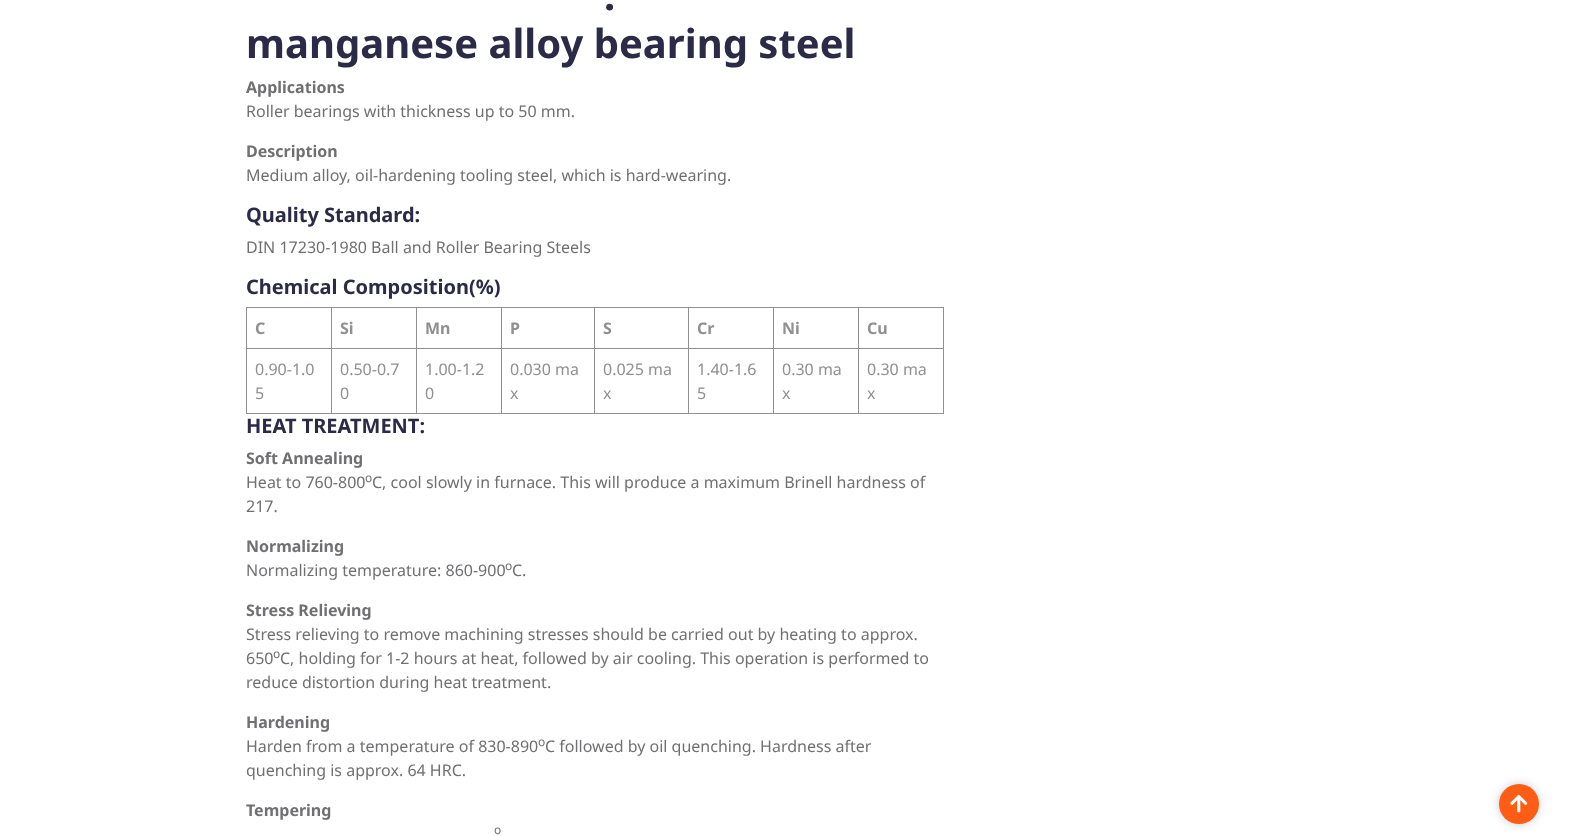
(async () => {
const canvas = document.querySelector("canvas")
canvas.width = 1569
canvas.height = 836
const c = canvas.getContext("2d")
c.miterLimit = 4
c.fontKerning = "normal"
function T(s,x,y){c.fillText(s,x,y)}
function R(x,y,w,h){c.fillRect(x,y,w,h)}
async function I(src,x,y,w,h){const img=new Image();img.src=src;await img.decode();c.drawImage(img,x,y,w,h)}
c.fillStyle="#fff"
R(0,0,1569,836)
c.font="bold 40px Noto Sans"
c.fillStyle="#2b2b47"
T(".",604,10)
T("manganese alloy bearing steel",246,58)
c.font="bold 16px Noto Sans"
c.fillStyle="#707072"
T("Applications",246,93)
c.font="16px Noto Sans"
T("Roller bearings with thickness up to 50 mm.",246,117)
c.font="bold 16px Noto Sans"
T("Description",246,157)
c.font="16px Noto Sans"
T("Medium alloy, oil-hardening tooling steel, which is hard-wearing.",246,181)
c.font="bold 20px Noto Sans"
c.fillStyle="#2b2b47"
T("Quality Standard:",246,222)
c.font="16px Noto Sans"
c.fillStyle="#707072"
T("DIN 17230-1980 Ball and Roller Bearing Steels",246,253)
c.font="bold 20px Noto Sans"
c.fillStyle="#2b2b47"
T("Chemical Composition(%)",246,294)
c.fillStyle="#909090"
R(858,307,86,1)
R(858,348,86,1)
R(943,348,1,66)
R(858,413,86,1)
R(858,348,1,66)
R(773,348,86,1)
R(858,307,1,42)
R(773,307,86,1)
R(773,413,86,1)
R(773,348,1,66)
R(688,348,86,1)
R(773,307,1,42)
R(688,307,86,1)
R(688,413,86,1)
R(688,348,1,66)
R(594,348,95,1)
R(688,307,1,42)
R(594,307,95,1)
R(594,413,95,1)
R(594,348,1,66)
R(501,348,94,1)
R(594,307,1,42)
R(501,307,94,1)
R(501,413,94,1)
R(501,348,1,66)
R(416,348,86,1)
R(501,307,1,42)
R(416,307,86,1)
R(416,413,86,1)
R(416,348,1,66)
R(331,348,86,1)
R(416,307,1,42)
R(331,307,86,1)
R(331,413,86,1)
R(331,348,1,66)
R(246,348,86,1)
R(331,307,1,42)
R(246,307,86,1)
R(246,413,86,1)
R(246,348,1,66)
R(246,307,1,42)
c.font="bold 16px Noto Sans"
T("C",255,334)
T("Si",340,334)
T("Mn",425,334)
T("P",510,334)
T("S",603,334)
T("Cr",697,334)
T("Ni",782,334)
R(943,307,1,42)
T("Cu",867,334)
c.font="16px Noto Sans"
T("0.90-1.0",255,375)
T("5",255,399)
T("0.50-0.7",340,375)
T("0",340,399)
T("1.00-1.2",425,375)
T("0",425,399)
T("0.030 ma",510,375)
T("x",510,399)
T("0.025 ma",603,375)
T("x",603,399)
T("1.40-1.6",697,375)
T("5",697,399)
T("0.30 ma",782,375)
T("x",782,399)
T("0.30 ma",867,375)
T("x",867,399)
c.font="bold 20px Noto Sans"
c.fillStyle="#2b2b47"
T("HEAT TREATMENT:",246,433)
c.font="bold 16px Noto Sans"
c.fillStyle="#707072"
T("Soft Annealing",246,464)
c.font="16px Noto Sans"
T("Heat to 760-800",246,488)
c.font="12px Noto Sans"
T("o",365,482)
c.font="16px Noto Sans"
T("C, cool slowly in furnace. This will produce a maximum Brinell hardness of",372,488)
T("217.",246,512)
c.font="bold 16px Noto Sans"
T("Normalizing",246,552)
c.font="16px Noto Sans"
T("Normalizing temperature: 860-900",246,576)
c.font="12px Noto Sans"
T("o",505,570)
c.font="16px Noto Sans"
T("C.",512,576)
c.font="bold 16px Noto Sans"
T("Stress Relieving",246,616)
c.font="16px Noto Sans"
T("Stress relieving to remove machining stresses should be carried out by heating to approx.",246,640)
T("650",246,664)
c.font="12px Noto Sans"
T("o",273,658)
c.font="16px Noto Sans"
T("C, holding for 1-2 hours at heat, followed by air cooling. This operation is performed to",280,664)
T("reduce distortion during heat treatment.",246,688)
c.font="bold 16px Noto Sans"
T("Hardening",246,728)
c.font="16px Noto Sans"
T("Harden from a temperature of 830-890",246,752)
c.font="12px Noto Sans"
T("o",538,746)
c.font="16px Noto Sans"
T("C followed by oil quenching. Hardness after",545,752)
T("quenching is approx. 64 HRC.",246,776)
c.font="bold 16px Noto Sans"
T("Tempering",246,816)
c.font="12px Noto Sans"
T("o",494,834)
c.fillStyle="#00000033"
c.filter="blur(5px)"
c.beginPath()
c.roundRect(1499,784,40,40,20)
c.fill()
c.filter="none"
c.fillStyle="#ff5d15"
c.beginPath()
c.arc(1519,804,20,0,7)
c.fill()
await I("1.png",1510,794,18,19)
})()
